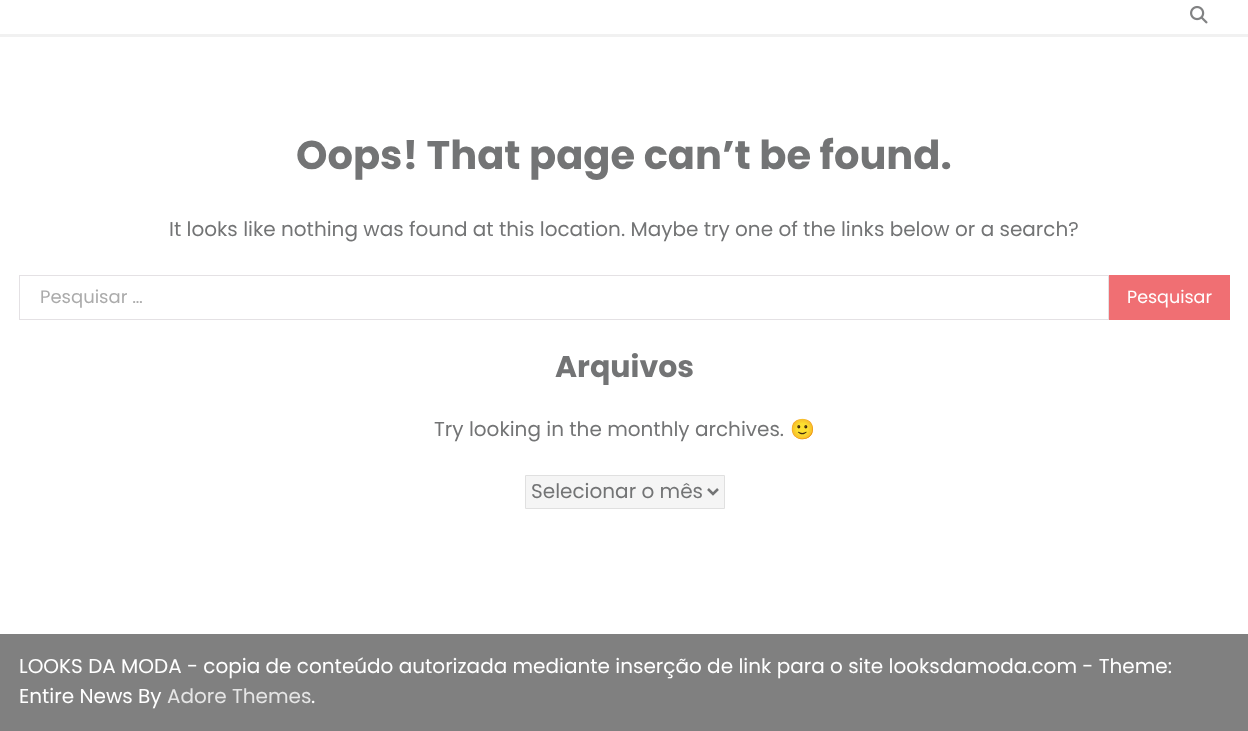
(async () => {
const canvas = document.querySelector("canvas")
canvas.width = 1248
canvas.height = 731
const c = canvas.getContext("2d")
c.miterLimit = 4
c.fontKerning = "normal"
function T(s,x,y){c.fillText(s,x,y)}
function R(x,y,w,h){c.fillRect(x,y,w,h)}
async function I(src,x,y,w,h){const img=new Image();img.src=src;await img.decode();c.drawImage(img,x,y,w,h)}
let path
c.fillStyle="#fff"
R(0,0,1248,731)
c.fillStyle="#f1f1f1"
R(0,34,1248,3)
await I("1.png",1190,5,18,19)
c.font="bold 40px Poppins"
c.fillStyle="#737475"
T("Oops! That page can’t be found.",296,169)
c.font="20px Poppins"
T("It looks like nothing was found at this location. Maybe try one of the links below or a search?",169,236)
c.strokeStyle="#e4e1e4"
c.strokeRect(19.5,275.5,1089,44)
c.font="18px Poppins"
c.fillStyle="#ababab"
T("Pesquisar …",40,303)
c.fillStyle="#f06f73"
R(1109,275,121,45)
c.font="17.5px Poppins"
c.fillStyle="#fff"
T("Pesquisar",1127,303)
c.font="bold 30px Poppins"
c.fillStyle="#737475"
T("Arquivos",555,377)
c.font="20px Poppins"
T("Try looking in the monthly archives.",434,436)
c.font="20px Noto Color Emoji"
T("🙂",790,436)
c.fillStyle="#f5f5f5"
c.beginPath()
c.rect(525.5,475.5,199,33)
c.fill()
c.strokeStyle="#e0e0e0"
c.stroke()
path = new Path2D("M708 489l5 5l5-5")
c.strokeStyle="#737475"
c.lineWidth=2.5
c.stroke(path)
c.font="20px Poppins"
c.fillStyle="#737475"
T("Selecionar o mês",531,498)
c.fillStyle="#808080"
R(0,634,1248,97)
c.fillStyle="#fff"
T("LOOKS DA MODA - copia de conteúdo autorizada mediante inserção de link para o site looksdamoda.com - Theme:",19,673)
T("Entire News By",19,703)
c.fillStyle="#e5e5e5"
T("Adore Themes",167,703)
c.fillStyle="#fff"
T(".",311,703)
})()
